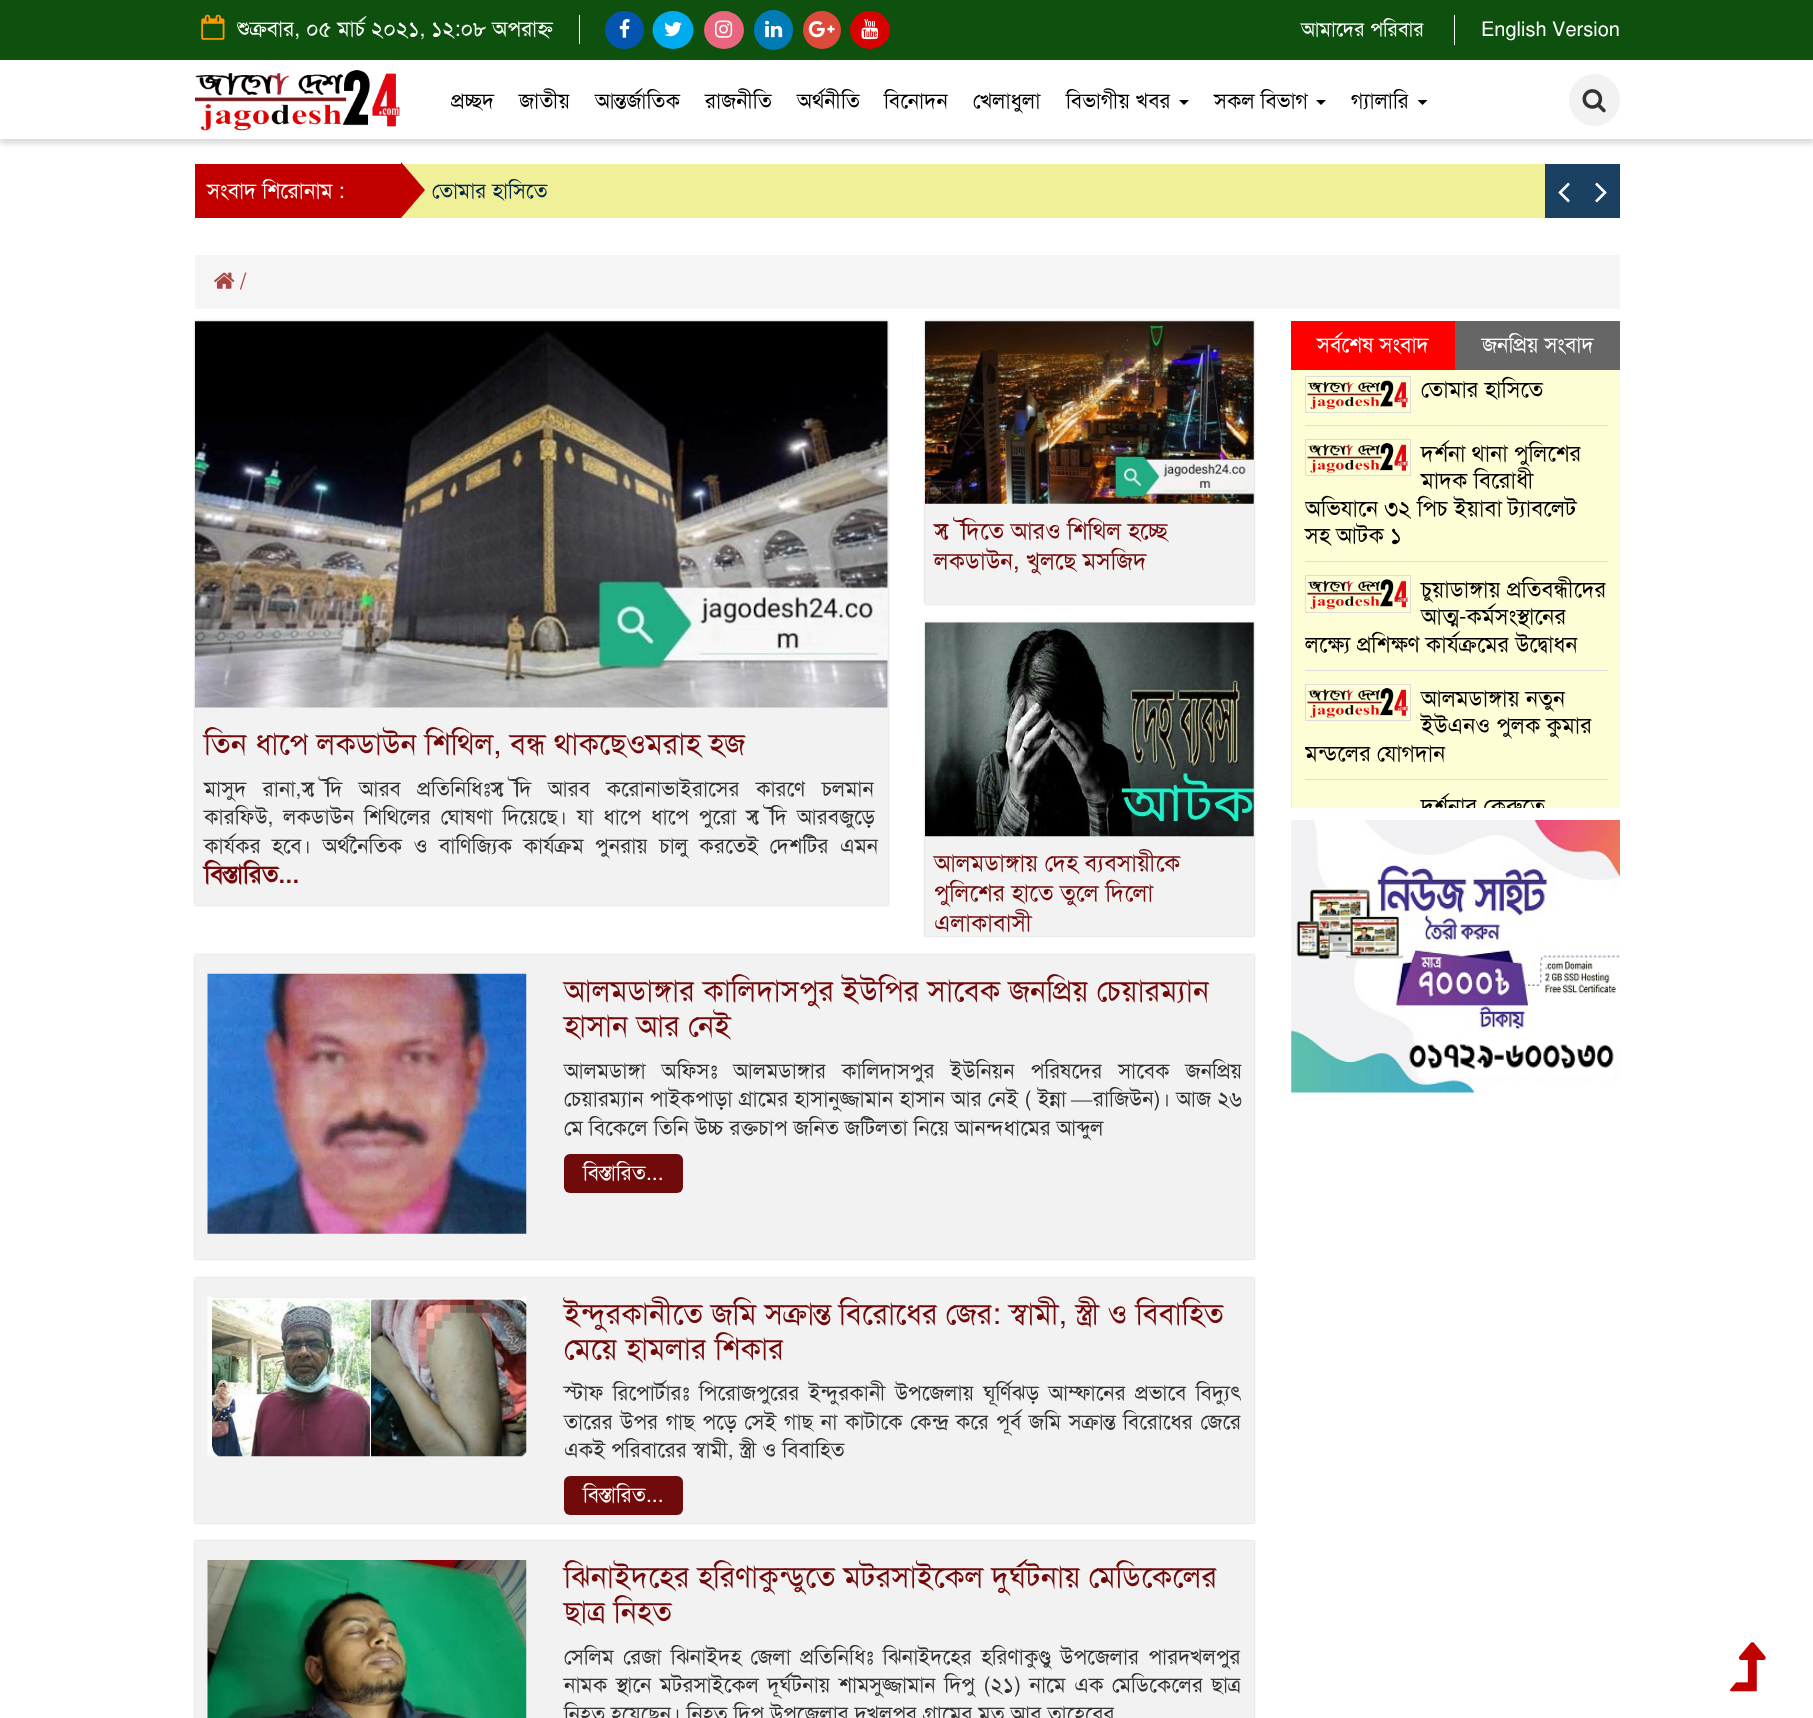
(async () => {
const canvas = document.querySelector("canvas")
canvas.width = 1813
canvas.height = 1718
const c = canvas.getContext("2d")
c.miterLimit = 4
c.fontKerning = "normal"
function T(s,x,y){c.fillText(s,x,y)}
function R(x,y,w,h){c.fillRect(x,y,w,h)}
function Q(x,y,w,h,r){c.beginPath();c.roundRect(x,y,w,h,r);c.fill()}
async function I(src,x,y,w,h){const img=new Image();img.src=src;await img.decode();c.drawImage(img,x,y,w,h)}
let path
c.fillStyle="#fff"
R(0,0,1813,1718)
c.fillStyle="#0e510f"
R(0,0,1813,60)
c.fillStyle="#fff"
R(579,15,1,29)
await I("1.png",201,14,24,26)
c.font="21.25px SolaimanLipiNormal"
T("শুক্রবার, ০৫ মার্চ ২০২১, ১২:০৮ অপরাহ্ন",237,36)
c.fillStyle="#0355af"
Q(605,11,39,38,19)
await I("2.png",619,19,11,19)
c.fillStyle="#00acee"
c.beginPath()
c.ellipse(673,30,20.5,19,0,0,7)
c.fill()
await I("3.png",664,22,18,15)
c.fillStyle="#e9667f"
c.beginPath()
c.ellipse(724,30,20,19,0,0,7)
c.fill()
await I("4.png",715,20,18,18)
c.fillStyle="#007bb6"
Q(754,10,39,40,19.5)
await I("5.png",765,20,18,18)
c.fillStyle="#dd4a3a"
c.beginPath()
c.arc(822,30,19,0,7)
c.fill()
await I("6.png",808,20,27,18)
c.fillStyle="#d80202"
c.beginPath()
c.ellipse(870,30,20,19,0,0,7)
c.fill()
await I("7.png",861,19,18,21)
c.font="20px SolaimanLipiNormal"
c.fillStyle="#fff"
T("আমাদের পরিবার",1301,36)
R(1454,15,1,30)
T("English Version",1481,36)
c.fillStyle="#ddd"
c.filter="blur(2.5px)"
c.beginPath()
c.rect(0,65,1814,79)
c.fill()
c.filter="none"
c.fillStyle="#fff"
R(0,61,1813,78)
await I("8.png",195,69,205,62)
c.font="21.25px SolaimanLipiNormal"
c.fillStyle="#000"
T("প্রচ্ছদ",451,108)
T("জাতীয়",519,108)
T("আন্তর্জাতিক",595,108)
T("রাজনীতি",705,108)
T("অর্থনীতি",797,108)
T("বিনোদন",884,108)
T("খেলাধুলা",973,108)
T("বিভাগীয় খবর",1066,108)
path = new Path2D("M1179 100h10l-5 5z")
c.fill(path)
T("সকল বিভাগ",1214,108)
path = new Path2D("M1316 100h10l-5 5z")
c.fill(path)
T("গ্যালারি",1351,108)
path = new Path2D("M1417.5 100h10l-5 5z")
c.fill(path)
c.fillStyle="#f2f2f2"
Q(1569,74,51,52,25.5)
await I("9.png",1582,89,24,24)
c.fillStyle="#c30000"
R(195,164,206,54)
c.fillStyle="#fff"
T("সংবাদ শিরোনাম :",207,198)
c.fillStyle="#f0f099"
R(401,164,1144,54)
c.fillStyle="#c30000"
path = new Path2D("M401 218v-56l24 28z")
c.fill(path)
c.fillStyle="#01284f"
T("তোমার হাসিতে",432,198)
c.fillStyle="#1a4162"
R(1545,164,75,54)
await I("10.png",1558,182,12,21)
await I("11.png",1595,182,12,21)
c.fillStyle="#f5f5f5"
R(195,255,1425,54)
await I("12.png",214,272,21,17)
c.font="22.5px SolaimanLipiNormal"
c.fillStyle="#a94442"
T("/",240,289)
c.fillStyle="#c1c0c0"
c.filter="blur(1px)"
c.beginPath()
c.rect(195,321,693,584)
c.fill()
c.filter="none"
c.fillStyle="#f2f2f2"
R(195,321,693,584)
await I("13.png",195,321,693,387)
c.font="30px SolaimanLipiNormal"
c.fillStyle="#710b0b"
T("তিন ধাপে লকডাউন শিথিল, বন্ধ থাকছেওমরাহ হজ",204,754)
c.wordSpacing="10.5px"
c.font="21.25px SolaimanLipiNormal"
c.fillStyle="#333"
T("মাসুদ রানা,সৌদি আরব প্রতিনিধিঃসৌদি আরব করোনাভাইরাসের কারণে চলমান",204,796)
c.wordSpacing="4px"
T("কারফিউ, লকডাউন শিথিলের ঘোষণা দিয়েছে। যা ধাপে ধাপে পুরো সৌদি আরবজুড়ে",204,824)
c.wordSpacing="5.5px"
T("কার্যকর হবে। অর্থনৈতিক ও বাণিজ্যিক কার্যক্রম পুনরায় চালু করতেই দেশটির এমন",204,853)
c.wordSpacing="0px"
c.font="bold 25px SolaimanLipiNormal"
c.fillStyle="#710b0b"
T("বিস্তারিত...",204,883)
c.fillStyle="#c1c0c0"
c.filter="blur(1px)"
c.beginPath()
c.rect(925,321,329,283)
c.fill()
c.filter="none"
c.fillStyle="#f2f2f2"
R(925,321,329,283)
await I("14.png",925,321,329,183)
c.font="23.75px SolaimanLipiNormal"
c.fillStyle="#710b0b"
T("সৌদিতে আরও শিথিল হচ্ছে",934,539)
T("লকডাউন, খুলছে মসজিদ",934,569)
c.fillStyle="#c1c0c0"
c.filter="blur(1px)"
c.beginPath()
c.rect(925,623,329,313)
c.fill()
c.filter="none"
c.fillStyle="#f2f2f2"
R(925,623,329,313)
await I("15.png",925,622,329,215)
c.fillStyle="#710b0b"
T("আলমডাঙ্গায় দেহ ব্যবসায়ীকে",934,871)
T("পুলিশের হাতে তুলে দিলো",934,901)
T("এলাকাবাসী",934,931)
c.fillStyle="#c1c0c0"
c.filter="blur(1px)"
c.beginPath()
c.rect(195,955,1059,304)
c.fill()
c.filter="none"
c.fillStyle="#f2f2f2"
R(195,955,1059,304)
await I("16.png",207,973,320,261)
c.font="30px SolaimanLipiNormal"
c.fillStyle="#710b0b"
T("আলমডাঙ্গার কালিদাসপুর ইউপির সাবেক জনপ্রিয় চেয়ারম্যান",564,1001)
T("হাসান আর নেই",564,1036)
c.wordSpacing="10px"
c.font="21.25px SolaimanLipiNormal"
c.fillStyle="#333"
T("আলমডাঙ্গা অফিসঃ আলমডাঙ্গার কালিদাসপুর ইউনিয়ন পরিষদের সাবেক জনপ্রিয়",564,1078)
c.wordSpacing="0.25px"
T("চেয়ারম্যান পাইকপাড়া গ্রামের হাসানুজ্জামান হাসান আর নেই ( ইন্না",564,1106)
c.wordSpacing="0px"
c.font="21.25px Liberation Serif"
T("—",1071,1106)
c.wordSpacing="0.25px"
c.font="21.25px SolaimanLipiNormal"
T("রাজিউন)। আজ ২৬",1093,1106)
c.wordSpacing="0px"
T("মে বিকেলে তিনি উচ্চ রক্তচাপ জনিত জটিলতা নিয়ে আনন্দধামের আব্দুল",564,1135)
c.fillStyle="#710b0b"
Q(564,1154,119,39,6)
c.fillStyle="#fff"
T("বিস্তারিত...",583,1180)
c.fillStyle="#c1c0c0"
c.filter="blur(1px)"
c.beginPath()
c.rect(195,1278,1059,245)
c.fill()
c.filter="none"
c.fillStyle="#f2f2f2"
R(195,1278,1059,245)
await I("17.png",207,1296,320,161)
c.font="30px SolaimanLipiNormal"
c.fillStyle="#710b0b"
T("ইন্দুরকানীতে জমি সক্রান্ত বিরোধের জের: স্বামী, স্ত্রী ও বিবাহিত",564,1324)
T("মেয়ে হামলার শিকার",564,1359)
c.wordSpacing="3.5px"
c.font="21.25px SolaimanLipiNormal"
c.fillStyle="#333"
T("স্টাফ রিপোর্টারঃ পিরোজপুরের ইন্দুরকানী উপজেলায় ঘূর্ণিঝড় আম্ফানের প্রভাবে বিদ্যুৎ",564,1400)
c.wordSpacing="1.75px"
T("তারের উপর গাছ পড়ে সেই গাছ না কাটাকে কেন্দ্র করে পূর্ব জমি সক্রান্ত বিরোধের জেরে",564,1429)
c.wordSpacing="0px"
T("একই পরিবারের স্বামী, স্ত্রী ও বিবাহিত",564,1457)
c.fillStyle="#710b0b"
Q(564,1476,119,39,6)
c.fillStyle="#fff"
T("বিস্তারিত...",583,1502)
c.fillStyle="#c1c0c0"
c.filter="blur(1px)"
c.beginPath()
c.rect(195,1541,1059,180)
c.fill()
c.filter="none"
c.fillStyle="#f2f2f2"
R(195,1541,1059,177)
await I("18.png",207,1560,320,158)
c.font="30px SolaimanLipiNormal"
c.fillStyle="#710b0b"
T("ঝিনাইদহের হরিণাকুন্ডুতে মটরসাইকেল দুর্ঘটনায় মেডিকেলের",564,1587)
T("ছাত্র নিহত",564,1622)
c.wordSpacing="3.5px"
c.font="21.25px SolaimanLipiNormal"
c.fillStyle="#333"
T("সেলিম রেজা ঝিনাইদহ জেলা প্রতিনিধিঃ ঝিনাইদহের হরিণাকুণ্ডু উপজেলার পারদখলপুর",564,1664)
c.wordSpacing="2.6px"
T("নামক স্থানে মটরসাইকেল দূর্ঘটনায় শামসুজ্জামান দিপু (২১) নামে এক মেডিকেলের ছাত্র",564,1692)
c.wordSpacing="0px"
T("নিহত হয়েছেন। নিহত দিপু উপজেলার দখলপুর গ্রামের মৃত আবু তাহেরের",564,1721)
c.fillStyle="#fe0000"
R(1291,321,164,49)
c.fillStyle="#fff"
T("সর্বশেষ সংবাদ",1317,352)
c.fillStyle="#666"
R(1455,321,165,49)
c.fillStyle="#fff"
T("জনপ্রিয় সংবাদ",1482,352)
c.fillStyle="#fdfdd6"
R(1292,370,328,438)
c.fillStyle="#e8e8ff"
R(1291,370,1,438)
c.fillStyle="#ddd"
R(1305,425,303,1)
c.strokeStyle="#ddd"
c.strokeRect(1305.5,376.5,105,36)
await I("19.png",1307,380,101,30)
c.font="22.5px SolaimanLipiNormal"
c.fillStyle="#000"
T("তোমার হাসিতে",1421,397)
c.fillStyle="#ddd"
R(1305,561,303,1)
c.strokeRect(1305.5,439.5,105,36)
await I("20.png",1307,442,101,31)
c.fillStyle="#000"
T("দর্শনা থানা পুলিশের",1421,461)
T("মাদক বিরোধী",1421,488)
c.save()
c.beginPath()
c.rect(1305,439,303,122)
c.clip()
T("অভিযানে ৩২ পিচ ইয়াবা ট্যাবলেট",1305,516)
c.restore()
T("সহ আটক ১",1305,543)
c.fillStyle="#ddd"
R(1305,670,303,1)
c.strokeRect(1305.5,575.5,105,37)
await I("21.png",1307,579,101,31)
c.fillStyle="#000"
T("চুয়াডাঙ্গায় প্রতিবন্ধীদের",1421,597)
T("আত্ম-কর্মসংস্থানের",1421,624)
c.save()
c.beginPath()
c.rect(1305,575,303,95)
c.clip()
T("লক্ষ্যে প্রশিক্ষণ কার্যক্রমের উদ্বোধন",1305,652)
c.restore()
c.fillStyle="#ddd"
R(1305,779,303,1)
c.strokeRect(1305.5,684.5,105,36)
await I("20.png",1307,687,101,31)
c.fillStyle="#000"
T("আলমডাঙ্গায় নতুন",1421,706)
T("ইউএনও পুলক কুমার",1421,733)
c.save()
c.beginPath()
c.rect(1305,684,303,95)
c.clip()
T("মন্ডলের যোগদান",1305,761)
c.restore()
c.save()
c.beginPath()
c.rect(1305,793,303,15)
c.clip()
T("দর্শনার কেরুতে",1421,814)
c.restore()
await I("22.png",1291,820,329,273)
await I("23.png",1730,1642,36,50)
})()
